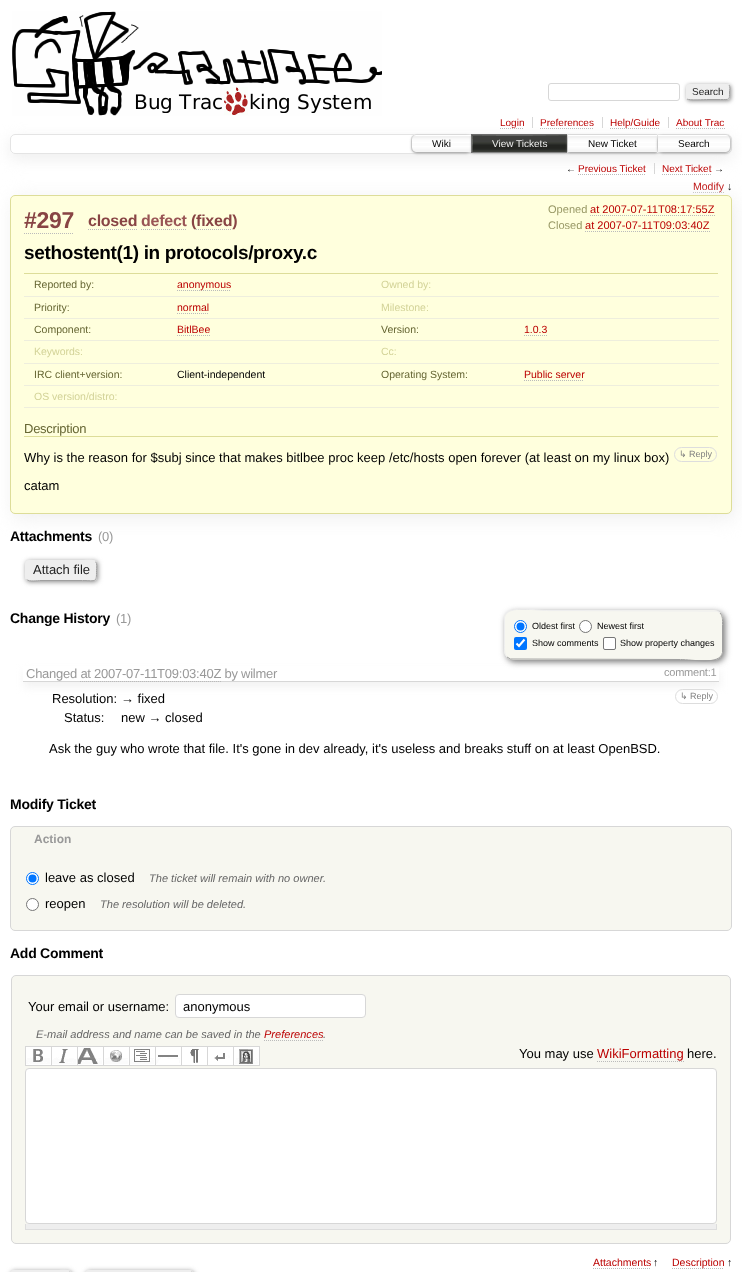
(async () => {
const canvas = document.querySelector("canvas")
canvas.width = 742
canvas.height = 1272
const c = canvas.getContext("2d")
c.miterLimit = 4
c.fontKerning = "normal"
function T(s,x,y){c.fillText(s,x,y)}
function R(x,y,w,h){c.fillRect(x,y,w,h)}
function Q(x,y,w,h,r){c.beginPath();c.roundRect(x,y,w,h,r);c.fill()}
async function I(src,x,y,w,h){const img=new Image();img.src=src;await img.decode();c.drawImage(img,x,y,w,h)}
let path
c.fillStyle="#fff"
R(0,0,742,1272)
c.save()
path = new Path2D("M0 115h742v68h-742zm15 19h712c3 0 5 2 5 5v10c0 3-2 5-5 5h-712c-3 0-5-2-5-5v-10c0-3 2-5 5-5z")
c.clip(path,"evenodd")
c.fillStyle="#eee"
c.filter="blur(7.5px)"
c.beginPath()
c.roundRect(10,139,722,20,5)
c.fill()
c.filter="none"
c.restore()
await I("1.png",12,11,370,105)
c.beginPath()
c.roundRect(548.5,83.5,131,17,2.5)
c.strokeStyle="#d7d7d7"
c.stroke()
c.fillStyle="#888"
c.filter="blur(2px)"
c.beginPath()
c.roundRect(687,85,44,16,3)
c.fill()
c.filter="none"
c.fillStyle="#eee"
Q(686,84,44,16,3)
path = new Path2D("M729 85c1.5 2 .5 5 .5 7c0 8.5 .5 7.5-9 7.5h-12.5c-3 0-19 1-21-.5")
c.strokeStyle="#9f9f9f"
c.stroke(path)
path = new Path2D("M687 99c-1.5-2-.5-5-.5-7c0-8.5-.5-7.5 9-7.5h12.5c3 0 19-1 21 .5")
c.strokeStyle="#eee"
c.stroke(path)
c.font="10px Liberation Sans"
c.fillStyle="#222"
T("Search",692,95)
c.fillStyle="#d7d7d7"
R(532,117,1,11)
path = new Path2D("M500 128.5h24")
c.strokeStyle="#bbb"
c.setLineDash([1,1])
c.stroke(path)
c.fillStyle="#b00"
T("Login",500,126)
c.fillStyle="#d7d7d7"
R(602,117,1,11)
c.fillStyle="#b00"
T("Preferences",540,126)
path = new Path2D("M540 128.5h54")
c.stroke(path)
c.fillStyle="#d7d7d7"
R(668,117,1,11)
path = new Path2D("M610 128.5h50")
c.stroke(path)
c.fillStyle="#b00"
T("Help/Guide",610,126)
T("About Trac",676,126)
path = new Path2D("M676 128.5h49")
c.stroke(path)
c.beginPath()
c.roundRect(10.5,134.5,721,19,4.5)
c.strokeStyle="#e4e4e4"
c.setLineDash([])
c.stroke()
c.fillStyle="#fff"
c.beginPath()
c.roundRect(411,134,61,19,[5,0,0,5])
c.fill()
await I("2.png",411,136,60,17)
c.beginPath()
c.roundRect(411.5,134.5,60,18,[4.5,0,0,4.5])
c.stroke()
c.save()
path = new Path2D("M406 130h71v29h-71zm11 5h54v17h-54c-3 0-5-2-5-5v-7c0-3 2-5 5-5z")
c.clip(path,"evenodd")
c.fillStyle="#999"
c.filter="blur(1.5px)"
c.beginPath()
c.roundRect(412,136,59,17,5)
c.fill()
c.filter="none"
c.restore()
c.fillStyle="#000"
T("Wiki",432,147)
c.strokeStyle="#666"
c.strokeRect(471.5,134.5,96,18)
c.fillStyle="#999"
c.filter="blur(1.5px)"
c.beginPath()
c.rect(472,136,95,17)
c.fill()
c.filter="none"
c.fillStyle="#000"
R(472,135,95,17)
await I("3.png",472,135,95,17)
c.fillStyle="#eee"
T("View Tickets",492,147)
c.fillStyle="#fff"
R(568,135,2,17)
await I("4.png",568,136,89,16)
c.strokeStyle="#e4e4e4"
c.strokeRect(567.5,134.5,90,18)
c.save()
path = new Path2D("M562 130h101v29h-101zm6 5h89v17h-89z")
c.clip(path,"evenodd")
c.fillStyle="#999"
c.filter="blur(1.5px)"
c.beginPath()
c.rect(568,136,89,17)
c.fill()
c.filter="none"
c.restore()
c.fillStyle="#000"
T("New Ticket",588,147)
c.fillStyle="#fff"
c.beginPath()
c.roundRect(657,134,74,19,[0,5,5,0])
c.fill()
await I("5.png",658,136,73,17)
c.beginPath()
c.roundRect(657.5,134.5,73,18,[0,4.5,4.5,0])
c.stroke()
c.save()
path = new Path2D("M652 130h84v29h-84zm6 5h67c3 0 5 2 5 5v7c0 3-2 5-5 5h-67z")
c.clip(path,"evenodd")
c.fillStyle="#999"
c.filter="blur(1.5px)"
c.beginPath()
c.roundRect(658,136,72,17,5)
c.fill()
c.filter="none"
c.restore()
c.fillStyle="#000"
T("Search",678,147)
c.fillStyle="#d7d7d7"
R(654,163,1,11)
c.fillStyle="#000"
T("←",566,172)
path = new Path2D("M578 174.5h68")
c.strokeStyle="#bbb"
c.setLineDash([1,1])
c.stroke(path)
c.fillStyle="#b00"
T("Previous Ticket",578,172)
T("Next Ticket",662,172)
path = new Path2D("M662 174.5h50")
c.stroke(path)
c.fillStyle="#000"
T("→",714,172)
path = new Path2D("M693 192.5h31")
c.stroke(path)
c.font="10.5px Liberation Sans"
c.fillStyle="#b00"
T("Modify",693,190)
c.fillStyle="#000"
T("↓",727,190)
c.fillStyle="#eee"
c.filter="blur(10px)"
c.beginPath()
c.roundRect(13,199,722,319,5)
c.fill()
c.filter="none"
c.fillStyle="#ffd"
c.beginPath()
c.roundRect(10.5,195.5,721,318,4.5)
c.fill()
c.strokeStyle="#dd9"
c.setLineDash([])
c.stroke()
c.letterSpacing="-0.25px"
c.font="bold 23px Liberation Sans"
c.fillStyle="#844"
T("#297",24,228)
path = new Path2D("M24 233.5h50")
c.strokeStyle="#bbb"
c.setLineDash([1,1])
c.stroke(path)
c.font="bold 16px Liberation Sans"
T("closed",88,226)
path = new Path2D("M88 229.5h49")
c.stroke(path)
c.fillStyle="#955"
T("defect",141,226)
path = new Path2D("M141 229.5h45")
c.stroke(path)
c.fillStyle="#844"
T("(fixed)",191,226)
path = new Path2D("M196 229.5h36")
c.stroke(path)
c.letterSpacing="0px"
c.font="11.05px Liberation Sans"
c.fillStyle="#996"
T("Opened",548,213)
c.fillStyle="#b00"
T("at 2007-07-11T08:17:55Z",590,213)
path = new Path2D("M590 215.5h125")
c.stroke(path)
c.fillStyle="#996"
T("Closed",548,229)
c.fillStyle="#b00"
T("at 2007-07-11T09:03:40Z",585,229)
path = new Path2D("M585 231.5h125")
c.stroke(path)
c.letterSpacing="-0.35px"
c.font="bold 19px Liberation Sans"
c.fillStyle="#000"
T("sethostent(1) in protocols/proxy.c",24,259)
c.fillStyle="#dd9"
R(24,273,694,1)
c.fillStyle="#eed"
R(24,296,695,1)
c.letterSpacing="0px"
c.font="10.5px Liberation Sans"
c.fillStyle="#663"
T("Reported by:",34,288)
path = new Path2D("M177 290.5h54")
c.stroke(path)
c.fillStyle="#b00"
T("anonymous",177,288)
c.fillStyle="#d3d398"
T("Owned by:",381,288)
c.fillStyle="#eed"
R(24,318,695,1)
c.fillStyle="#663"
T("Priority:",34,311)
c.fillStyle="#b00"
T("normal",177,311)
path = new Path2D("M177 313.5h32")
c.stroke(path)
c.fillStyle="#d3d398"
T("Milestone:",381,311)
c.fillStyle="#eed"
R(24,340,695,1)
c.fillStyle="#663"
T("Component:",34,333)
c.fillStyle="#b00"
T("BitlBee",177,333)
path = new Path2D("M177 335.5h33")
c.stroke(path)
c.fillStyle="#663"
T("Version:",381,333)
c.fillStyle="#b00"
T("1.0.3",524,333)
path = new Path2D("M524 335.5h23")
c.stroke(path)
c.fillStyle="#eed"
R(24,363,695,1)
c.fillStyle="#d3d398"
T("Keywords:",34,355)
T("Cc:",381,355)
c.fillStyle="#eed"
R(24,385,695,1)
c.fillStyle="#663"
T("IRC client+version:",34,378)
c.fillStyle="#000"
T("Client-independent",177,378)
c.fillStyle="#663"
T("Operating System:",381,378)
c.fillStyle="#b00"
T("Public server",524,378)
path = new Path2D("M524 380.5h60")
c.stroke(path)
c.fillStyle="#eed"
R(24,407,695,1)
c.fillStyle="#d3d398"
T("OS version/distro:",34,400)
c.fillStyle="#dd9"
R(24,436,694,1)
c.letterSpacing="-0.25px"
c.font="13px Liberation Sans"
c.fillStyle="#663"
T("Description",24,433)
c.letterSpacing="0px"
c.fillStyle="#000"
T("Why is the reason for $subj since that makes bitlbee proc keep /etc/hosts open forever (at least on my linux box)",24,462)
T("catam",24,490)
c.beginPath()
c.roundRect(674.5,447.5,42,14,7)
c.strokeStyle="#ddd"
c.setLineDash([])
c.stroke()
c.font="9px DejaVu Sans"
c.fillStyle="#808080"
T("↳",679,457)
c.font="9px Liberation Sans"
T("Reply",689,457)
c.letterSpacing="-0.25px"
c.font="bold 14px Liberation Sans"
c.fillStyle="#000"
T("Attachments",10,541)
c.font="13px Liberation Sans"
c.fillStyle="#999"
T("(0)",98,541)
c.fillStyle="#888"
c.filter="blur(2.5px)"
c.beginPath()
c.roundRect(26,561,72,21,4)
c.fill()
c.filter="none"
c.fillStyle="#eee"
Q(25,560,72,21,4)
path = new Path2D("M95.5 561.5c2 2 1 6.5 1 9c0 12.5 0 10-14 10h-43c-.5 0-10.5 1.5-13-1")
c.strokeStyle="#9f9f9f"
c.stroke(path)
path = new Path2D("M26.5 579.5c-2-2-1-6.5-1-9c0-12.5 0-10 14-10h43c.5 0 10.5-1.5 13 1")
c.strokeStyle="#eee"
c.stroke(path)
c.letterSpacing="0px"
c.fillStyle="#222"
T("Attach file",33,574)
c.letterSpacing="-0.25px"
c.font="bold 14px Liberation Sans"
c.fillStyle="#000"
T("Change History",10,623)
c.font="13px Liberation Sans"
c.fillStyle="#999"
T("(1)",116,623)
c.fillStyle="#777"
c.filter="blur(3px)"
c.beginPath()
c.roundRect(506,612,219,50,9)
c.fill()
c.filter="none"
c.save()
path = new Path2D("M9 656h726v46h-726zm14 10h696v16h-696z")
c.clip(path,"evenodd")
c.fillStyle="#f2f2f2"
c.filter="blur(4.5px)"
c.beginPath()
c.rect(24,671,696,16)
c.fill()
c.filter="none"
c.restore()
c.fillStyle="#f7f7f0"
Q(504,610,219,50,9)
path = new Path2D("M720 613c3 3 2.5 7.5 2.5 11.5v28c-2.5 13-30 7-42 7l-170-.5l-3.5-2")
c.strokeStyle="#9f9f9f"
c.stroke(path)
path = new Path2D("M507 657c-3-3-2.5-7.5-2.5-11.5v-28c2.5-13 30-7 42-7l170 .5l3.5 2")
c.strokeStyle="#eee"
c.stroke(path)
c.fillStyle="#fff"
c.beginPath()
c.arc(520.5,626.5,6,0,7)
c.fill()
c.strokeStyle="#0075ff"
c.stroke()
c.fillStyle="#0075ff"
c.beginPath()
c.arc(520.5,626.5,4,0,7)
c.fill()
c.letterSpacing="0px"
c.font="9px Liberation Sans"
c.fillStyle="#000"
T("Oldest first",532,629)
c.fillStyle="#fff"
c.beginPath()
c.arc(585.5,626.5,6,0,7)
c.fill()
c.strokeStyle="#767676"
c.stroke()
c.fillStyle="#000"
T("Newest first",597,629)
c.fillStyle="#0075ff"
Q(514,637,13,13,2)
path = new Path2D("M516.5 643.5l2.5 2.5l5.5-6.5")
c.strokeStyle="#fff"
c.lineWidth=2.1
c.stroke(path)
c.fillStyle="#000"
T("Show comments",532,646)
c.fillStyle="#fff"
c.beginPath()
c.roundRect(603.5,637.5,12,12,1.5)
c.fill()
c.strokeStyle="#767676"
c.lineWidth=1
c.stroke()
c.fillStyle="#000"
T("Show property changes",620,646)
c.fillStyle="#d7d7d7"
R(23,681,696,1)
c.letterSpacing="-0.25px"
c.font="13px Liberation Sans"
c.fillStyle="#999"
T("Changed at 2007-07-11T09:03:40Z by wilmer",26,678)
c.font="11.05px Liberation Sans"
T("comment:1",664,676)
path = new Path2D("M80 681.5h141")
c.strokeStyle="#bbb"
c.setLineDash([1,1])
c.stroke(path)
c.letterSpacing="0px"
c.font="13px Liberation Sans"
c.fillStyle="#000"
T("Resolution:",52,703)
T("→ fixed",121,703)
T("Status:",64,722)
T("new → closed",121,722)
c.beginPath()
c.roundRect(675.5,689.5,42,14,7)
c.strokeStyle="#ddd"
c.setLineDash([])
c.stroke()
c.font="9px DejaVu Sans"
c.fillStyle="#808080"
T("↳",680,699)
c.font="9px Liberation Sans"
T("Reply",690,699)
c.font="13px Liberation Sans"
c.fillStyle="#000"
T("Ask the guy who wrote that file. It's gone in dev already, it's useless and breaks stuff on at least OpenBSD.",49,753)
c.letterSpacing="-0.25px"
c.font="bold 14px Liberation Sans"
T("Modify Ticket",10,809)
c.fillStyle="#f7f7f0"
c.beginPath()
c.roundRect(10.5,826.5,721,104,4.5)
c.fill()
c.strokeStyle="#d7d7d7"
c.stroke()
c.letterSpacing="0px"
c.font="bold 12px Liberation Sans"
c.fillStyle="#999"
T("Action",34,843)
c.fillStyle="#fff"
c.beginPath()
c.arc(32.5,878.5,6,0,7)
c.fill()
c.strokeStyle="#0075ff"
c.stroke()
c.fillStyle="#0075ff"
c.beginPath()
c.arc(32.5,878.5,4,0,7)
c.fill()
c.font="13px Liberation Sans"
c.fillStyle="#000"
T("leave as closed",45,882)
c.font="italic 11.05px Liberation Sans"
c.fillStyle="#666"
T("The ticket will remain with no owner.",149,882)
c.fillStyle="#fff"
c.beginPath()
c.arc(32.5,904.5,6,0,7)
c.fill()
c.strokeStyle="#767676"
c.stroke()
c.font="13px Liberation Sans"
c.fillStyle="#000"
T("reopen",45,908)
c.font="italic 11.05px Liberation Sans"
c.fillStyle="#666"
T("The resolution will be deleted.",100,908)
c.letterSpacing="-0.25px"
c.font="bold 14px Liberation Sans"
c.fillStyle="#000"
T("Add Comment",10,958)
c.fillStyle="#f7f7f0"
c.beginPath()
c.roundRect(11.5,975.5,719,268,4.5)
c.fill()
c.strokeStyle="#d7d7d7"
c.stroke()
c.letterSpacing="0px"
c.font="13px Liberation Sans"
c.fillStyle="#000"
T("Your email or username:",28,1011)
c.fillStyle="#fff"
c.beginPath()
c.roundRect(175.5,994.5,190,23,3.5)
c.fill()
c.stroke()
c.fillStyle="#000"
T("anonymous",183,1011)
c.font="italic 11.05px Liberation Sans"
c.fillStyle="#666"
T("E-mail address and name can be saved in the",36,1038)
c.fillStyle="#b00"
T("Preferences",264,1038)
path = new Path2D("M264 1040.5h59")
c.strokeStyle="#bbb"
c.setLineDash([1,1])
c.stroke(path)
c.fillStyle="#666"
T(".",323,1038)
c.fillStyle="#d7d7d7"
R(25,1046,235,1)
R(259,1046,1,20)
R(25,1065,235,1)
await I("6.png",26,1048,24,16)
c.fillStyle="#fff"
R(25,1047,234,1)
R(50,1047,1,18)
R(25,1064,26,1)
c.fillStyle="#d7d7d7"
R(25,1047,1,18)
await I("7.png",52,1048,24,16)
c.fillStyle="#fff"
R(76,1047,1,18)
R(51,1064,26,1)
c.fillStyle="#d7d7d7"
R(51,1047,1,18)
await I("8.png",78,1048,24,16)
c.fillStyle="#fff"
R(102,1047,1,18)
R(77,1064,26,1)
c.fillStyle="#d7d7d7"
R(77,1047,1,18)
await I("9.png",104,1048,24,16)
c.fillStyle="#fff"
R(128,1047,1,18)
R(103,1064,26,1)
c.fillStyle="#d7d7d7"
R(103,1047,1,18)
await I("10.png",130,1048,24,16)
c.fillStyle="#fff"
R(154,1047,1,18)
R(129,1064,26,1)
c.fillStyle="#d7d7d7"
R(129,1047,1,18)
await I("11.png",156,1048,24,16)
c.fillStyle="#fff"
R(180,1047,1,18)
R(155,1064,26,1)
c.fillStyle="#d7d7d7"
R(155,1047,1,18)
await I("12.png",182,1048,24,16)
c.fillStyle="#fff"
R(206,1047,1,18)
R(181,1064,26,1)
c.fillStyle="#d7d7d7"
R(181,1047,1,18)
await I("13.png",208,1048,24,16)
c.fillStyle="#fff"
R(232,1047,1,18)
R(207,1064,26,1)
c.fillStyle="#d7d7d7"
R(207,1047,1,18)
await I("14.png",234,1048,24,16)
c.fillStyle="#fff"
R(258,1047,1,18)
R(233,1064,26,1)
c.fillStyle="#d7d7d7"
R(233,1047,1,18)
c.font="13px Liberation Sans"
c.fillStyle="#000"
T("You may use",519,1058)
c.fillStyle="#b00"
T("WikiFormatting",597,1058)
path = new Path2D("M597 1061.5h87")
c.stroke(path)
c.fillStyle="#000"
T("here.",687,1058)
c.fillStyle="#fff"
c.beginPath()
c.roundRect(25.5,1068.5,691,155,3.5)
c.fill()
c.strokeStyle="#d7d7d7"
c.setLineDash([])
c.stroke()
c.fillStyle="#eee"
R(26,1224,690,5)
c.fillStyle="#ddd"
R(716,1224,1,6)
R(25,1229,692,1)
R(25,1224,1,6)
c.fillStyle="#888"
c.filter="blur(2.5px)"
c.beginPath()
c.roundRect(11,1271,61,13,4)
c.fill()
c.filter="none"
c.fillStyle="#eee"
Q(10,1270,61,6,4)
path = new Path2D("M69.5 1271.5c2 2 1 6.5 1 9c0 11.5 .5 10-12.5 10h-35c-.5 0-9 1.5-11.5-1")
c.strokeStyle="#9f9f9f"
c.stroke(path)
path = new Path2D("M11.5 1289.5c-2-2-1-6.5-1-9c0-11.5-.5-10 12.5-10h35c.5 0 9-1.5 11.5 1")
c.strokeStyle="#eee"
c.stroke(path)
c.fillStyle="#888"
c.filter="blur(2.5px)"
c.beginPath()
c.roundRect(86,1271,108,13,4)
c.fill()
c.filter="none"
c.fillStyle="#eee"
Q(85,1270,108,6,4)
path = new Path2D("M191.5 1271.5c2 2 1 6.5 1 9c0 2.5 1.5 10-3.5 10h-100l-2.5-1")
c.strokeStyle="#9f9f9f"
c.stroke(path)
path = new Path2D("M86.5 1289.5c-2-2-1-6.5-1-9c0-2.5-1.5-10 3.5-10h100l2.5 1")
c.strokeStyle="#eee"
c.stroke(path)
c.font="10.5px Liberation Sans"
c.fillStyle="#b00"
T("Attachments",593,1266)
path = new Path2D("M593 1268.5h58")
c.strokeStyle="#bbb"
c.setLineDash([1,1])
c.stroke(path)
c.fillStyle="#000"
T("↑",653,1266)
path = new Path2D("M672 1268.5h52")
c.stroke(path)
c.fillStyle="#b00"
T("Description",672,1266)
c.fillStyle="#000"
T("↑",727,1266)
})()
